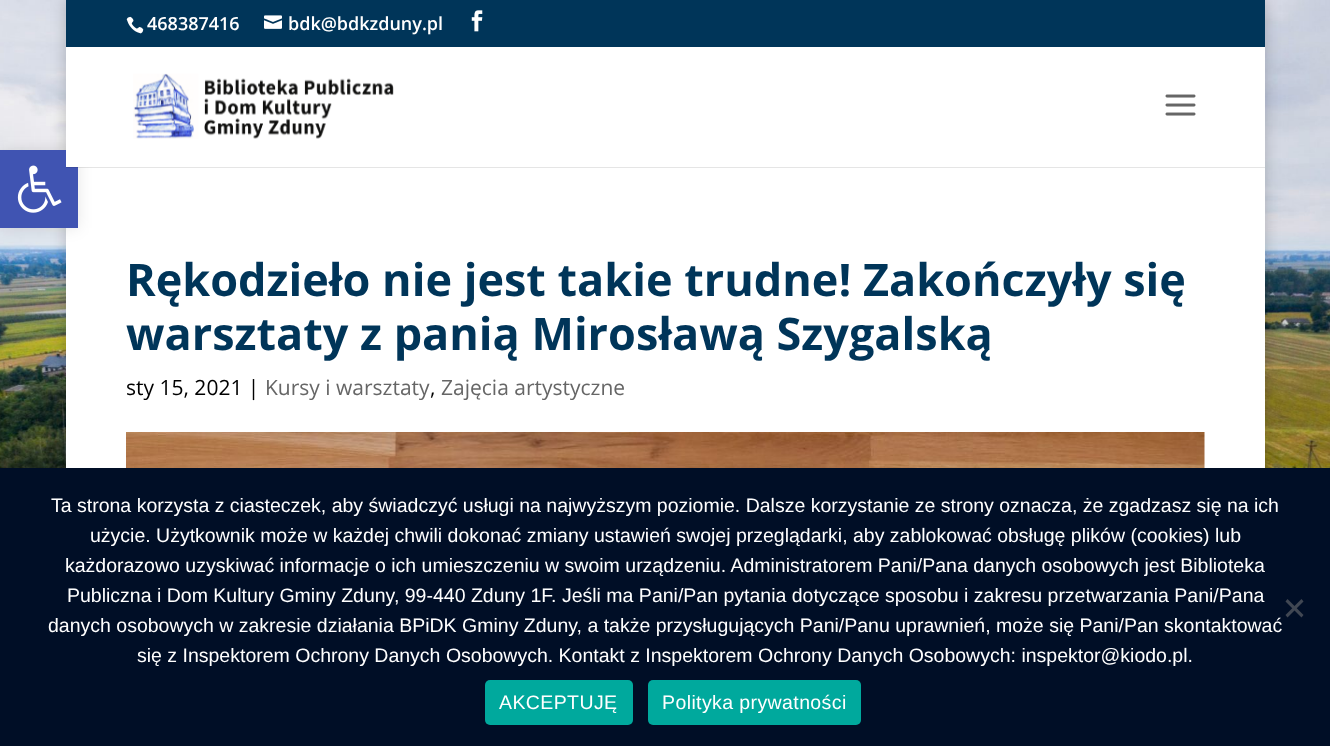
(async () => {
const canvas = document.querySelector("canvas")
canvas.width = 1330
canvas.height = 746
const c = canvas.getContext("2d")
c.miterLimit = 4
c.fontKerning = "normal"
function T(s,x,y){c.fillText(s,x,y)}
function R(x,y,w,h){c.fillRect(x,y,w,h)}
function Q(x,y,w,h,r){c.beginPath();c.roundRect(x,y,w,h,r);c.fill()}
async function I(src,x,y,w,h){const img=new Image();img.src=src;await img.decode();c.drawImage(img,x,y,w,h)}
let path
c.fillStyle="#fff"
R(0,0,1330,746)
await I("1.png",0,0,1330,468)
c.fillStyle="#00000033"
c.filter="blur(7.5px)"
c.beginPath()
c.rect(66,0,1199,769)
c.fill()
c.filter="none"
c.fillStyle="#fff"
R(66,167,1199,301)
c.fillStyle="#0000001a"
c.filter="blur(7.5px)"
c.beginPath()
c.rect(0,150,78,78)
c.fill()
c.filter="none"
c.fillStyle="#4054b2"
R(0,150,78,78)
await I("2.png",17,165,45,48)
c.fillStyle="#003559"
R(66,0,1199,47)
await I("3.png",126,16,18,18)
c.font="600 18px Open Sans"
c.fillStyle="#fff"
T("468387416",147,30)
await I("4.png",264,15,18,14)
T("bdk@bdkzduny.pl",288,30)
await I("5.png",471,10,12,22)
c.fillStyle="#0000001a"
path = new Path2D("M66 166v2h1199v-120h-1v118z")
c.fill(path)
c.fillStyle="#fff"
R(66,47,1199,120)
await I("6.png",133,73,261,66)
await I("7.png",1165,94,31,22)
c.font="bold 45px Open Sans"
c.fillStyle="#003559"
T("Rękodzieło nie jest takie trudne! Zakończyły się",126,296)
T("warsztaty z panią Mirosławą Szygalską",126,350)
c.font="21px Open Sans"
c.fillStyle="#000"
T("sty 15, 2021 |",126,395)
c.fillStyle="#666"
T("Kursy i warsztaty",265,395)
c.fillStyle="#000"
T(",",430,395)
c.fillStyle="#666"
T("Zajęcia artystyczne",441,395)
await I("8.png",126,432,1079,36)
c.fillStyle="#000e26"
R(0,468,1330,278)
c.font="19.5px Liberation Sans"
c.fillStyle="#fff"
T("Ta strona korzysta z ciasteczek, aby świadczyć usługi na najwyższym poziomie. Dalsze korzystanie ze strony oznacza, że zgadzasz się na ich",51,512)
T("użycie. Użytkownik może w każdej chwili dokonać zmiany ustawień swojej przeglądarki, aby zablokować obsługę plików (cookies) lub",90,542)
T("każdorazowo uzyskiwać informacje o ich umieszczeniu w swoim urządzeniu. Administratorem Pani/Pana danych osobowych jest Biblioteka",65,572)
T("Publiczna i Dom Kultury Gminy Zduny, 99-440 Zduny 1F. Jeśli ma Pani/Pan pytania dotyczące sposobu i zakresu przetwarzania Pani/Pana",67,602)
T("danych osobowych w zakresie działania BPiDK Gminy Zduny, a także przysługujących Pani/Panu uprawnień, może się Pani/Pan skontaktować",48,632)
T("się z Inspektorem Ochrony Danych Osobowych. Kontakt z Inspektorem Ochrony Danych Osobowych: inspektor@kiodo.pl.",137,662)
c.fillStyle="#404753"
path = new Path2D("M1301.5 599l2 2.5l-16 16l-2-2.5z")
c.fill(path)
path = new Path2D("M1285.5 601.5l2-2.5l16 16l-2 2.5z")
c.fill(path)
c.fillStyle="#00a99d"
Q(485,680,148,45,5)
c.letterSpacing="0.4px"
c.fillStyle="#fff"
T("AKCEPTUJĘ",499,709)
c.fillStyle="#00a99d"
Q(648,680,213,45,5)
c.fillStyle="#fff"
T("Polityka prywatności",662,709)
})()
